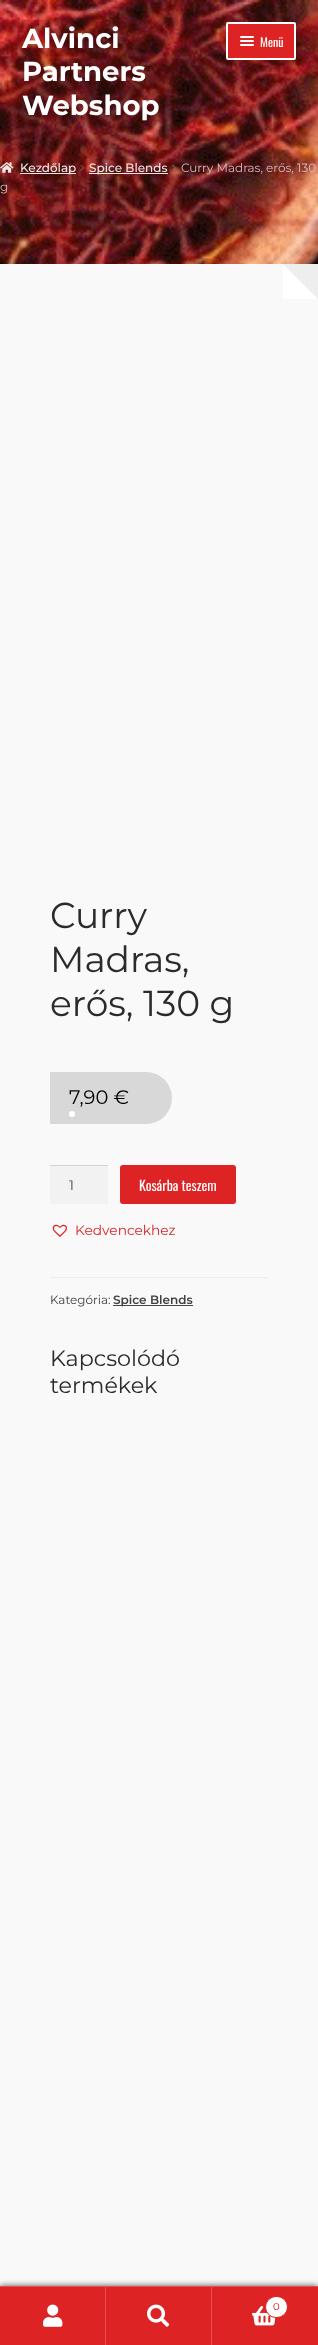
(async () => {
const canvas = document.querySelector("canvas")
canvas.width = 318
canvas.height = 2345
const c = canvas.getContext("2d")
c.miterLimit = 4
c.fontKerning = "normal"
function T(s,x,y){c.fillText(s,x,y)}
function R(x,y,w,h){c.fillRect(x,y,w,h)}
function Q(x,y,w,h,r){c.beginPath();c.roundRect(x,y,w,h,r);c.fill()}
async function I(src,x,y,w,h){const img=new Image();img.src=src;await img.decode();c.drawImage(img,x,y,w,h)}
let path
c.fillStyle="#fff"
R(0,0,318,2345)
await I("1.png",0,0,318,264)
c.font="bold 27.5px Montserrat"
T("Alvinci",22,48)
T("Partners",22,81)
T("Webshop",22,115)
c.fillStyle="#dd2323"
c.beginPath()
c.roundRect(227,23,68,36,1)
c.fill()
c.strokeStyle="#fff"
c.lineWidth=2
c.stroke()
c.fillStyle="#fff"
Q(240,36,14,2,1)
Q(240,40,14,2,1)
c.font="12px Oswald"
T("Menü",260,47)
Q(240,44,14,2,1)
await I("2.png",0,162,14,11)
c.fillStyle="#ffffffe6"
R(20,173,56,1)
c.font="500 12px Montserrat"
c.fillStyle="#efe8e8"
T("Kezdőlap",20,172)
await I("3.png",80,164,5,7)
c.fillStyle="#ffffffe6"
R(89,173,79,1)
c.fillStyle="#efe8e8"
T("Spice Blends",89,172)
await I("4.png",172,164,5,7)
c.font="12px Montserrat"
c.fillStyle="#d2bdbc"
T("Curry Madras, erős, 130",181,172)
c.fillStyle="#cab8b7"
T("g",0,191)
c.fillStyle="#f9f9f9"
R(0,264,318,2022)
c.fillStyle="#fff"
path = new Path2D("M318 299h-35v-35z")
c.fill(path)
c.fillStyle="#eee"
path = new Path2D("M318 264v35l-35-35z")
c.fill(path)
c.font="36px Montserrat"
c.fillStyle="#2b2b2b"
T("Curry",50,928)
T("Madras,",50,972)
T("erős, 130 g",50,1016)
c.fillStyle="#d8d8d8"
c.beginPath()
c.roundRect(50,1072,122,52,[0,26,26,0])
c.fill()
c.font="19.5px Montserrat"
c.fillStyle="#000"
T("7,90 €",69,1104)
c.fillStyle="#fff"
c.beginPath()
c.arc(72,1114,3,0,7)
c.fill()
c.fillStyle="#f2f2f2"
R(50,1166,58,38)
c.fillStyle="#d4d4d4"
R(50,1165,58,1)
c.font="13.75px Montserrat"
c.fillStyle="#43454b"
T("1",69,1190)
c.fillStyle="#dd2323"
Q(120,1165,116,39,3)
c.font="13.75px Oswald"
c.fillStyle="#fff"
T("Kosárba teszem",139,1191)
await I("5.png",52,1224,15,13)
c.font="13.75px Montserrat"
c.fillStyle="#dd2323"
T("Kedvencekhez",75,1235)
c.fillStyle="#ededed"
R(50,1277,218,1)
c.font="12px Montserrat"
c.fillStyle="#404040"
T("Kategória:",50,1304)
c.fillStyle="#454545"
R(113,1305,80,1)
c.font="600 12px Montserrat"
c.fillStyle="#404040"
T("Spice Blends",113,1304)
c.font="22.25px Montserrat"
c.fillStyle="#2b2b2b"
T("Kapcsolódó",50,1366)
T("termékek",50,1393)
c.fillStyle="#000000b3"
c.filter="blur(3px)"
c.beginPath()
c.rect(0,2286,318,59)
c.fill()
c.filter="none"
c.fillStyle="#e44f4f"
R(0,2286,318,1)
c.fillStyle="#dd2323"
R(0,2287,105,58)
c.fillStyle="#e44f4f"
R(105,2287,1,58)
await I("6.png",43,2304,20,23)
c.fillStyle="#dd2323"
R(106,2287,105,58)
c.fillStyle="#e44f4f"
R(211,2287,1,58)
await I("7.png",147,2304,23,23)
c.fillStyle="#dd2323"
R(212,2287,106,58)
await I("8.png",252,2306,24,20)
c.fillStyle="#fff"
c.beginPath()
c.roundRect(265.5,2296.5,22,21,10.5)
c.fill()
c.strokeStyle="#dd2323"
c.lineWidth=1
c.stroke()
c.font="10px Montserrat"
c.fillStyle="#dd2323"
T("0",273,2310)
})()
